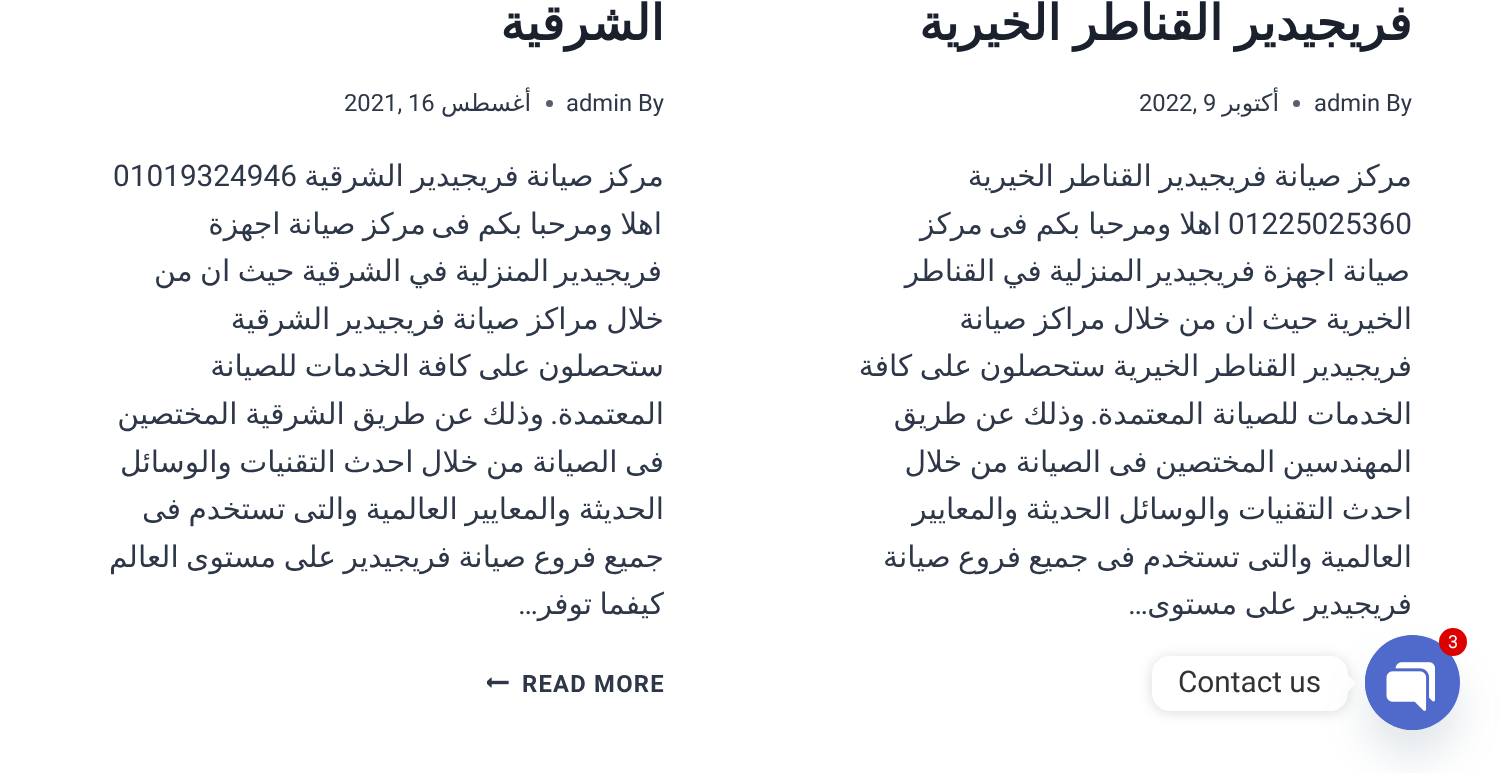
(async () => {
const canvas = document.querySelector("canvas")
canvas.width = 1510
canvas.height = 773
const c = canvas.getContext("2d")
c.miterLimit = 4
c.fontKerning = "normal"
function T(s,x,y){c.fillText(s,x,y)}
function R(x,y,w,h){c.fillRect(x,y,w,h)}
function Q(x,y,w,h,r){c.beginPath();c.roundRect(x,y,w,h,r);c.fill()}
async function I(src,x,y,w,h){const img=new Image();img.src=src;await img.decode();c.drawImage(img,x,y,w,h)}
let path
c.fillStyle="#fff"
R(0,0,1510,773)
c.wordSpacing="-3px"
c.direction="rtl"
c.font="bold 49px DejaVu Sans"
c.fillStyle="#1a202c"
T("فريجيدير القناطر الخيرية",1412,40)
c.wordSpacing="0px"
c.direction="ltr"
c.font="23.75px Roboto"
c.fillStyle="#2d3748"
T("By",1386,111)
T("admin",1314,111)
c.fillStyle="#575f6d"
c.beginPath()
c.arc(1296.5,103.5,3.5,0,7)
c.fill()
c.direction="rtl"
c.font="23.75px DejaVu Sans"
c.fillStyle="#2d3748"
T("أكتوبر",1279,111)
c.direction="ltr"
c.font="23.75px Roboto"
T("2022, 9",1139,111)
c.wordSpacing="-2px"
c.direction="rtl"
c.font="29.75px DejaVu Sans"
T("مركز صيانة فريجيدير القناطر الخيرية",1412,186)
c.wordSpacing="0px"
c.direction="ltr"
c.font="29.75px Roboto"
T("01225025360",1228,234)
c.wordSpacing="-1.5px"
c.direction="rtl"
c.font="29.75px DejaVu Sans"
T("اهلا ومرحبا بكم فى",1221,234)
c.wordSpacing="0px"
T("مركز",983,234)
c.wordSpacing="-2px"
T("صيانة اجهزة فريجيدير",1410,281)
T("المنزلية في القناطر",1143,281)
T("الخيرية حيث ان من خلال مراكز صيانة",1412,329)
T("فريجيدير القناطر الخيرية ستحصلون على كافة",1412,376)
c.wordSpacing="-1.5px"
T("الخدمات للصيانة المعتمدة",1412,424)
c.wordSpacing="0px"
c.font="29.75px Roboto"
T(".",1098,424)
c.wordSpacing="-1.5px"
c.font="29.75px DejaVu Sans"
T("وذلك عن طريق",1085,424)
c.wordSpacing="-2px"
T("المهندسين المختصين فى الصيانة من خلال",1412,472)
T("احدث التقنيات والوسائل الحديثة والمعايير",1412,519)
T("العالمية والتى تستخدم فى جميع فروع صيانة",1412,567)
T("فريجيدير على مستوى",1412,614)
c.wordSpacing="0px"
c.font="29.75px Roboto"
T("…",1148,614)
c.font="bold 49px DejaVu Sans"
c.fillStyle="#1a202c"
T("الشرقية",664,40)
c.direction="ltr"
c.font="23.75px Roboto"
c.fillStyle="#2d3748"
T("By",638,111)
T("admin",566,111)
c.fillStyle="#575f6d"
c.beginPath()
c.arc(549.5,103.5,3.5,0,7)
c.fill()
c.direction="rtl"
c.font="23.75px DejaVu Sans"
c.fillStyle="#2d3748"
T("أغسطس",531,111)
c.direction="ltr"
c.font="23.75px Roboto"
T("2021, 16",344,111)
c.wordSpacing="-2px"
c.direction="rtl"
c.font="29.75px DejaVu Sans"
T("مركز صيانة فريجيدير الشرقية",664,186)
c.wordSpacing="0px"
c.direction="ltr"
c.font="29.75px Roboto"
T("01019324946",113,186)
c.wordSpacing="-2px"
c.direction="rtl"
c.font="29.75px DejaVu Sans"
T("اهلا ومرحبا بكم فى",662,234)
T("مركز صيانة اجهزة",426,234)
T("المنزلية في الشرقية حيث ان من",549,281)
c.wordSpacing="0px"
T("فريجيدير",662,281)
c.wordSpacing="-2px"
T("خلال مراكز صيانة فريجيدير الشرقية",664,329)
T("ستحصلون على كافة الخدمات للصيانة",664,376)
c.wordSpacing="0px"
T("المعتمدة",664,424)
c.font="29.75px Roboto"
T(".",558,424)
c.wordSpacing="-1.5px"
c.font="29.75px DejaVu Sans"
T("وذلك عن طريق الشرقية المختصين",544,424)
c.wordSpacing="-2px"
T("فى الصيانة من خلال احدث التقنيات والوسائل",664,472)
T("الحديثة والمعايير العالمية والتى تستخدم فى",664,519)
T("جميع فروع صيانة فريجيدير على مستوى العالم",664,567)
T("كيفما توفر",664,614)
c.wordSpacing="0px"
c.font="29.75px Roboto"
T("…",538,614)
c.letterSpacing="1.25px"
c.direction="ltr"
c.font="bold 23.75px Roboto"
T("READ MORE",522,692)
await I("1.png",487,677,22,11)
c.fillStyle="#00000026"
c.filter="blur(7px)"
c.beginPath()
c.roundRect(1152,658,196,54,18)
c.fill()
c.filter="none"
c.fillStyle="#fff"
Q(1152,656,196,55,18)
path = new Path2D("M1347.5 692v-17.5l8.5 9z")
c.fill(path)
c.fillStyle="#49687e29"
c.filter="blur(21px)"
c.beginPath()
c.roundRect(1365,663,95,95,47.5)
c.fill()
c.filter="none"
c.fillStyle="#4f6aca"
c.beginPath()
c.arc(1412.5,682.5,47.5,0,7)
c.fill()
await I("2.png",1365,635,70,95)
c.fillStyle="#d00"
c.beginPath()
c.arc(1453,642,14,0,7)
c.fill()
c.letterSpacing="0px"
c.font="18px Roboto"
c.fillStyle="#fff"
T("3",1448,648)
c.font="29.75px Roboto"
c.fillStyle="#333"
T("Contact us",1178,692)
})()
